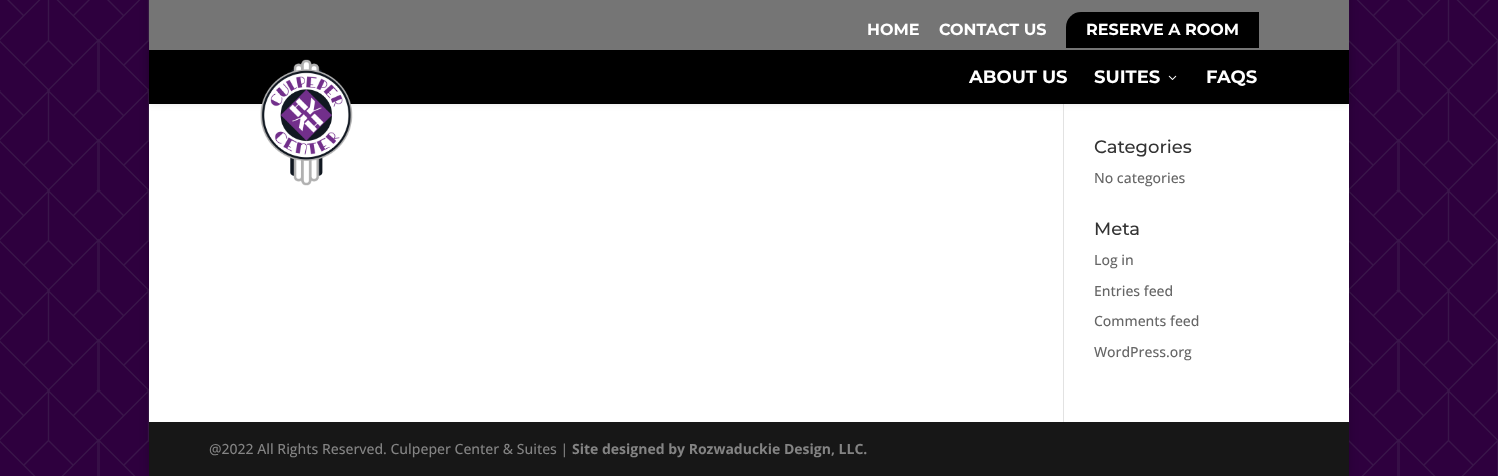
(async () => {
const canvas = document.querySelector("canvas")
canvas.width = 1498
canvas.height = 476
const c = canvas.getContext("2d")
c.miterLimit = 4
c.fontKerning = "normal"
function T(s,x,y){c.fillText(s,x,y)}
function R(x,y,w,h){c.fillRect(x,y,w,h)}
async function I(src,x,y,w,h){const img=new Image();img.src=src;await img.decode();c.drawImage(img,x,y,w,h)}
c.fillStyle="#fff"
R(0,0,1498,476)
await I("1.png",0,0,1498,476)
c.fillStyle="#00000033"
c.filter="blur(5px)"
c.beginPath()
c.rect(149,-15,1200,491)
c.fill()
c.filter="none"
c.fillStyle="#fff"
R(149,104,1200,318)
c.fillStyle="#e2e2e2"
R(1063,104,1,318)
c.fillStyle="#0000001a"
c.filter="blur(3.5px)"
c.beginPath()
c.rect(149,50,1200,54)
c.fill()
c.filter="none"
c.fillStyle="#757575"
R(149,0,1200,50)
c.font="bold 16px Montserrat"
c.fillStyle="#fff"
T("HOME",867,35)
T("CONTACT US",939,35)
c.fillStyle="#000"
c.beginPath()
c.roundRect(1066,12,193,36,[15,0,0,0])
c.fill()
c.fillStyle="#fff"
T("RESERVE A ROOM",1086,35)
c.fillStyle="#000"
R(149,50,1200,54)
await I("2.png",260,59,93,127)
c.font="bold 18px Montserrat"
c.fillStyle="#fff"
T("ABOUT US",969,83)
T("SUITES",1094,83)
await I("3.png",1168,75,9,5)
T("FAQS",1206,83)
c.font="500 18px Montserrat"
c.fillStyle="#333"
T("Categories",1094,153)
c.font="500 14px Open Sans"
c.fillStyle="#666"
T("No categories",1094,183)
c.font="500 18px Montserrat"
c.fillStyle="#333"
T("Meta",1094,235)
c.font="500 14px Open Sans"
c.fillStyle="#666"
T("Log in",1094,265)
T("Entries feed",1094,296)
T("Comments feed",1094,326)
T("WordPress.org",1094,357)
c.fillStyle="#171717"
R(149,422,1200,54)
c.fillStyle="#848484"
T("@2022 All Rights Reserved. Culpeper Center & Suites |",209,454)
c.font="bold 14px Open Sans"
T("Site designed by Rozwaduckie Design, LLC.",572,454)
})()
